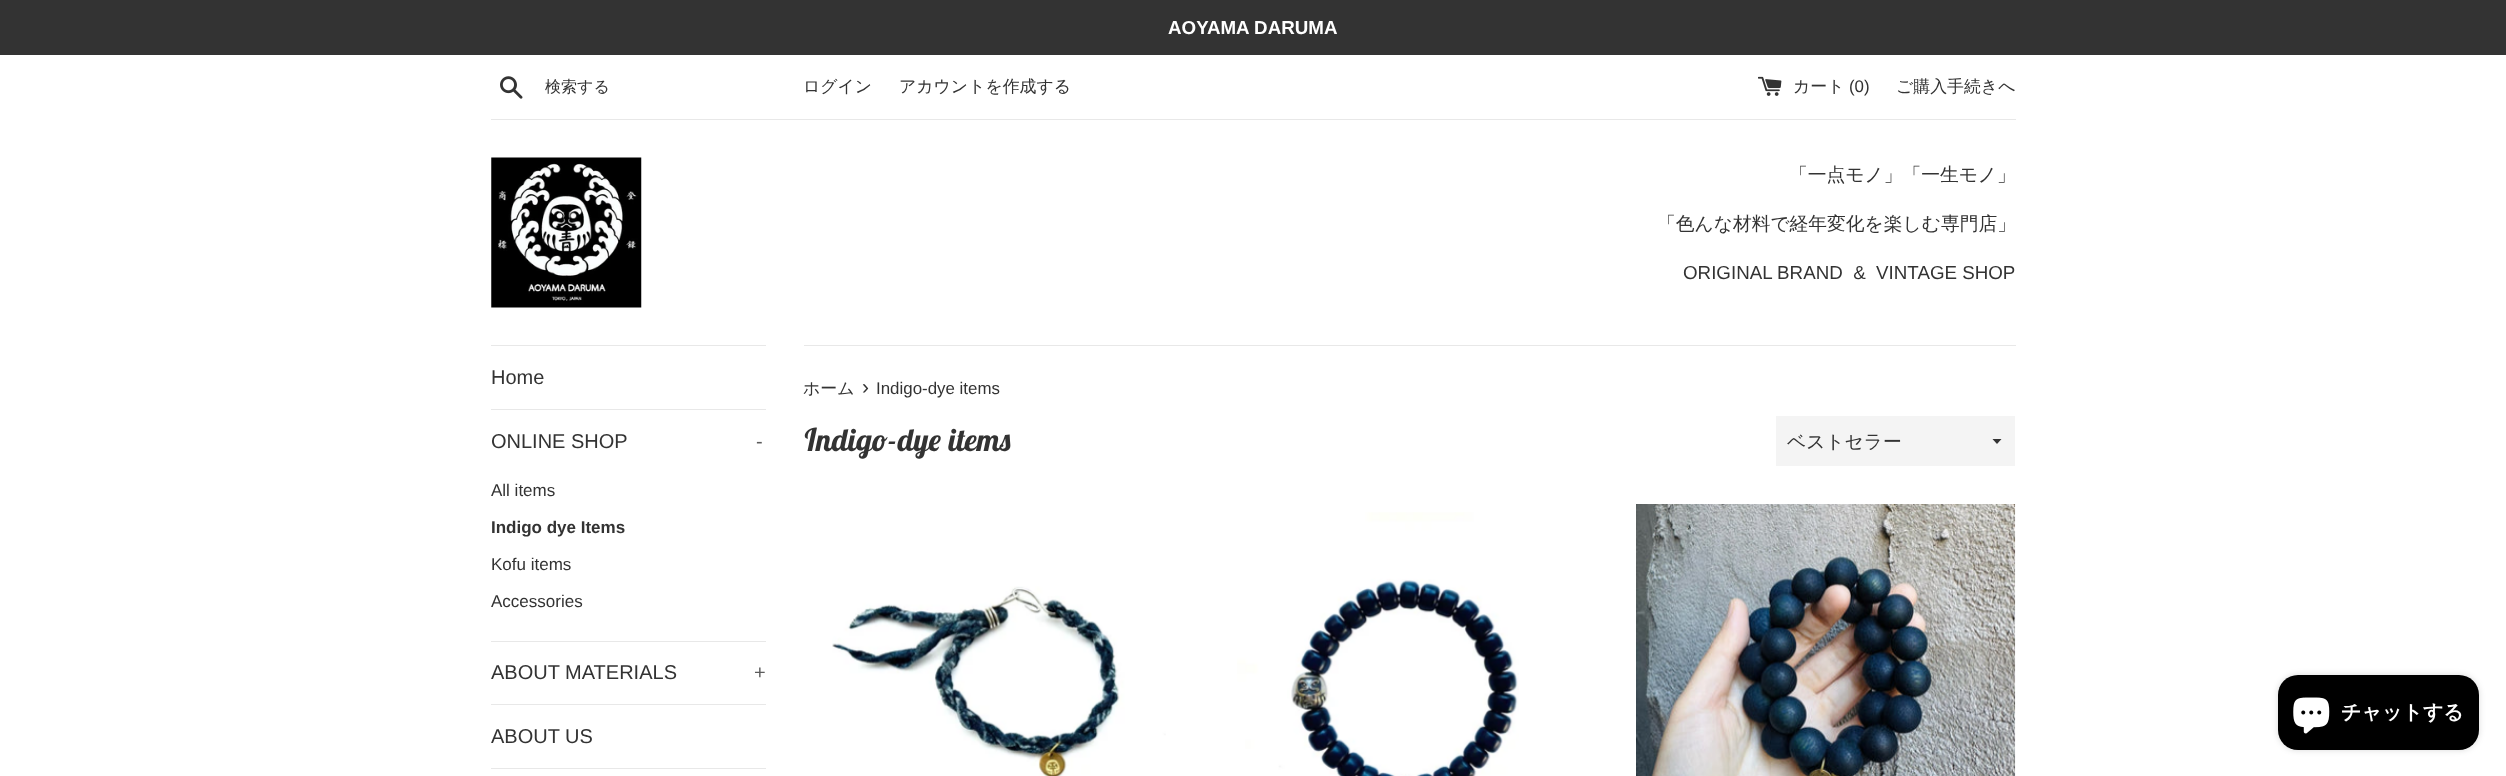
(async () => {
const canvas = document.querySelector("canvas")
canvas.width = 2506
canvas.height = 776
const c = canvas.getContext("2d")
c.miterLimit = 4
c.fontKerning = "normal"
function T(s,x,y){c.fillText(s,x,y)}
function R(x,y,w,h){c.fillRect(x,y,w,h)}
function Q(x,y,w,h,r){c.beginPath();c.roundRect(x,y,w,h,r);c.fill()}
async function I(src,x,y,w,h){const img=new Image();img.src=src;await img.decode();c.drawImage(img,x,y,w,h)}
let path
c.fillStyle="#fff"
R(0,0,2506,776)
c.fillStyle="#333"
R(0,0,2506,55)
c.font="bold 18.75px Liberation Sans"
c.fillStyle="#fff"
T("AOYAMA DARUMA",1168,34)
await I("1.png",500,76,23,23)
c.font="500 16px WenQuanYi Zen Hei"
c.fillStyle="#333"
T("検索する",545,92)
c.font="500 16.9px WenQuanYi Zen Hei"
T("ログイン",803,92)
T("アカウントを作成する",899,92)
await I("2.png",1758,76,24,20)
T("カート",1793,92)
c.font="16.9px Liberation Sans"
T("(0)",1849,92)
c.font="500 16.9px WenQuanYi Zen Hei"
T("ご購入手続きへ",1896,92)
c.fillStyle="#e8e8e8"
R(491,119,1525,1)
await I("3.png",491,157,151,151)
c.font="500 18.75px WenQuanYi Zen Hei"
c.fillStyle="#333"
T("「一点モノ」「一生モノ」",1789,181)
T("「色んな材料で経年変化を楽しむ専門店」",1657,230)
c.font="18.75px Liberation Sans"
T("ORIGINAL BRAND  &  VINTAGE SHOP",1683,279)
c.fillStyle="#e8e8e8"
R(491,345,275,1)
R(491,409,275,1)
c.font="20px Liberation Sans"
c.fillStyle="#333"
T("Home",491,384)
c.fillStyle="#e8e8e8"
R(491,641,275,1)
c.fillStyle="#333"
T("ONLINE SHOP",491,448)
c.fillStyle="#5c5c5c"
T("-",756,448)
c.font="17px Liberation Sans"
c.fillStyle="#333"
T("All items",491,496)
c.font="bold 17px Liberation Sans"
T("Indigo dye Items",491,533)
c.font="17px Liberation Sans"
T("Kofu items",491,570)
T("Accessories",491,607)
c.fillStyle="#e8e8e8"
R(491,704,275,1)
c.font="20px Liberation Sans"
c.fillStyle="#333"
T("ABOUT MATERIALS",491,679)
c.fillStyle="#5c5c5c"
T("+",754,679)
c.fillStyle="#e8e8e8"
R(491,768,275,1)
c.fillStyle="#333"
T("ABOUT US",491,743)
c.fillStyle="#e8e8e8"
R(804,345,1212,1)
c.font="500 16.9px WenQuanYi Zen Hei"
c.fillStyle="#333"
T("ホーム",803,394)
c.font="21px Liberation Sans"
T("›",862,394)
c.font="16.9px Liberation Sans"
T("Indigo-dye items",876,394)
c.font="italic bold 31.25px Lobster Two"
T("Indigo-dye items",803,451)
c.fillStyle="#f4f4f4"
R(1776,416,239,50)
c.fillStyle="#333"
path = new Path2D("M1992.5 439l4.5 5l4.5-5z")
c.fill(path)
c.font="500 18.75px WenQuanYi Zen Hei"
T("ベストセラー",1787,448)
await I("4.png",832,586,334,190)
await I("5.png",1237,512,282,264)
await I("6.png",1636,504,380,272)
c.fillStyle="#00000026"
c.filter="blur(3px)"
c.beginPath()
c.roundRect(2278,675,201,75,20)
c.fill()
c.filter="none"
c.fillStyle="#000"
Q(2278,675,201,75,20)
await I("7.png",2293,697,37,37)
c.font="bold 20px WenQuanYi Zen Hei"
c.fillStyle="#fff"
T("チャットする",2341,719)
})()
